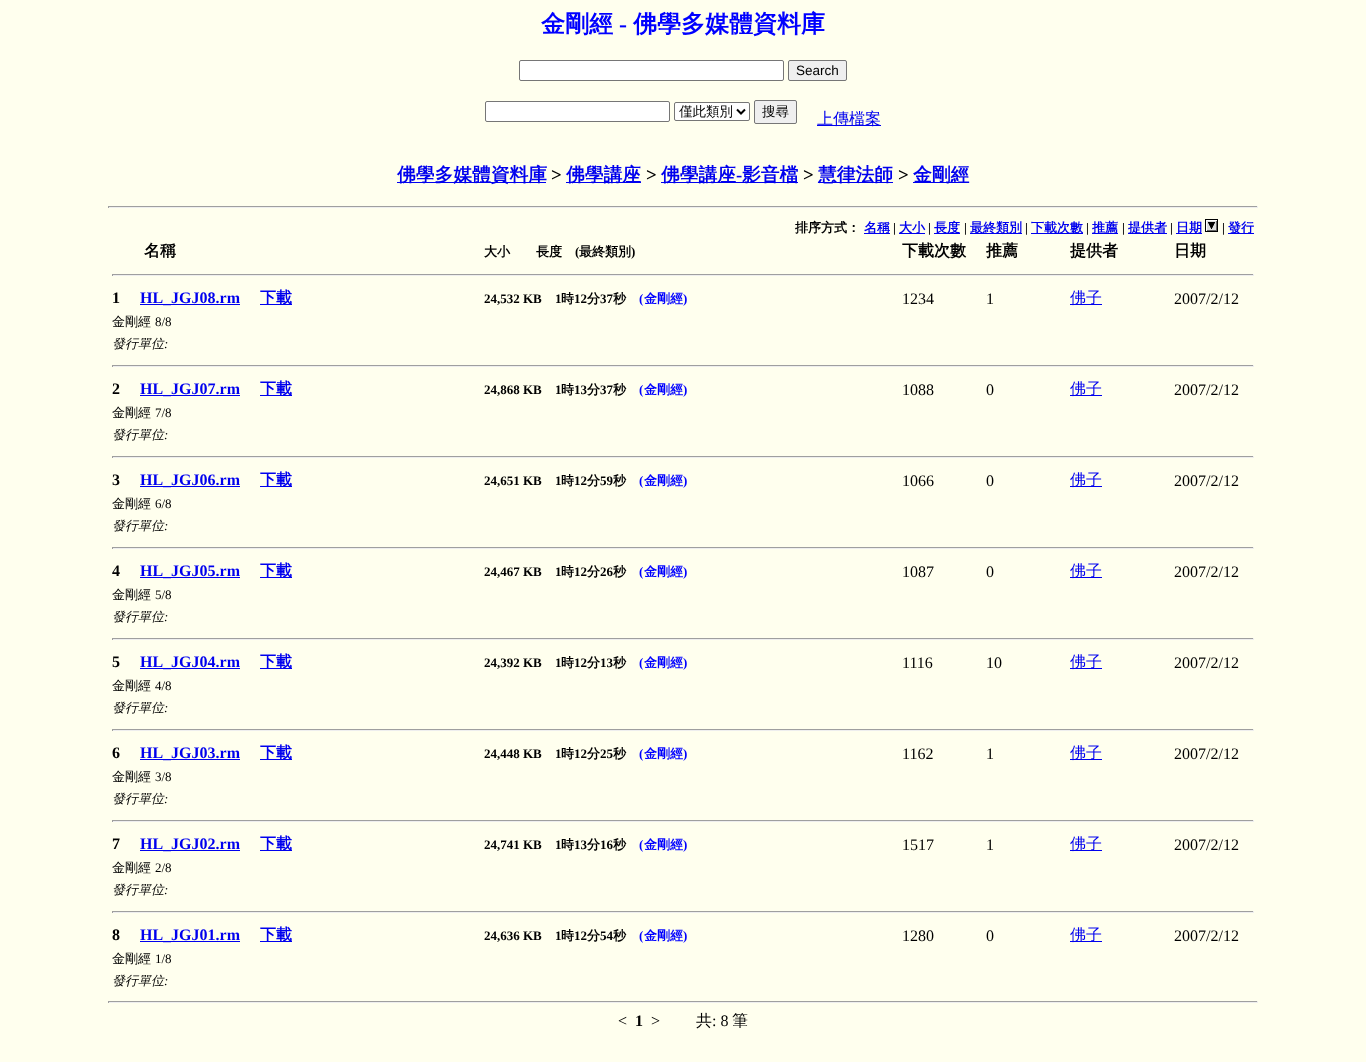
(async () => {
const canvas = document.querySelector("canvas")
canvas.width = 1366
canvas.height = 1062
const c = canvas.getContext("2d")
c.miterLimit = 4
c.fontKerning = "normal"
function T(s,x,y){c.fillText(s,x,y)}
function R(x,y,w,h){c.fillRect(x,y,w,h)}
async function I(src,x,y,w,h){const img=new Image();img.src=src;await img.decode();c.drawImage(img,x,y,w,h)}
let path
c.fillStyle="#ffe"
R(0,0,1366,1062)
c.font="bold 24px WenQuanYi Zen Hei"
c.fillStyle="#00f"
T("金剛經",541,32)
c.font="bold 24px Liberation Serif"
T("-",619,32)
c.font="bold 24px WenQuanYi Zen Hei"
T("佛學多媒體資料庫",633,32)
c.fillStyle="#fff"
c.beginPath()
c.roundRect(519.5,60.5,264,20,1.5)
c.fill()
c.strokeStyle="#767676"
c.stroke()
c.fillStyle="#efefef"
c.beginPath()
c.roundRect(788.5,60.5,58,20,1.5)
c.fill()
c.stroke()
c.font="13.5px Liberation Sans"
c.fillStyle="#000"
T("Search",796,75)
c.fillStyle="#fff"
c.beginPath()
c.roundRect(485.5,101.5,184,20,1.5)
c.fill()
c.stroke()
c.beginPath()
c.roundRect(674.5,102.5,75,18,1.5)
c.fill()
c.stroke()
path = new Path2D("M737 109.5l4 4l4-4")
c.strokeStyle="#000"
c.lineWidth=2
c.stroke(path)
c.font="500 13.5px WenQuanYi Zen Hei"
c.fillStyle="#000"
T("僅此類別",679,116)
c.fillStyle="#efefef"
c.beginPath()
c.roundRect(754.5,100.5,42,23,1.5)
c.fill()
c.strokeStyle="#767676"
c.lineWidth=1
c.stroke()
c.fillStyle="#000"
T("搜尋",762,116)
c.fillStyle="#00e"
R(817,125,64,1)
c.font="500 16px WenQuanYi Zen Hei"
T("上傳檔案",817,124)
R(397,182,149,1)
c.font="bold 18.75px WenQuanYi Zen Hei"
T("佛學多媒體資料庫",397,181)
c.font="bold 18.75px Liberation Serif"
c.fillStyle="#000"
T(">",551,181)
c.fillStyle="#00e"
R(566,182,75,1)
c.font="bold 18.75px WenQuanYi Zen Hei"
T("佛學講座",566,181)
c.font="bold 18.75px Liberation Serif"
c.fillStyle="#000"
T(">",646,181)
c.fillStyle="#00e"
R(661,182,137,1)
c.font="bold 18.75px WenQuanYi Zen Hei"
T("佛學講座",661,181)
c.font="bold 18.75px Liberation Serif"
T("-",736,181)
c.font="bold 18.75px WenQuanYi Zen Hei"
T("影音檔",742,181)
c.font="bold 18.75px Liberation Serif"
c.fillStyle="#000"
T(">",803,181)
c.fillStyle="#00e"
R(818,182,75,1)
c.font="bold 18.75px WenQuanYi Zen Hei"
T("慧律法師",818,181)
c.font="bold 18.75px Liberation Serif"
c.fillStyle="#000"
T(">",898,181)
c.fillStyle="#00e"
R(913,182,56,1)
c.font="bold 18.75px WenQuanYi Zen Hei"
T("金剛經",913,181)
c.fillStyle="#9f9f9f"
R(108,206,1150,1)
c.fillStyle="#eee"
R(1257,206,1,2)
R(108,207,1150,1)
c.fillStyle="#9f9f9f"
R(108,206,1,2)
c.font="bold 13px WenQuanYi Zen Hei"
c.fillStyle="#000"
T("排序方式：",795,232)
c.fillStyle="#00e"
R(864,233,26,1)
T("名稱",864,232)
c.font="bold 13px Liberation Serif"
c.fillStyle="#000"
T("|",893,232)
c.fillStyle="#00e"
R(899,233,26,1)
c.font="bold 13px WenQuanYi Zen Hei"
T("大小",899,232)
c.font="bold 13px Liberation Serif"
c.fillStyle="#000"
T("|",928,232)
c.fillStyle="#00e"
R(934,233,26,1)
c.font="bold 13px WenQuanYi Zen Hei"
T("長度",934,232)
c.font="bold 13px Liberation Serif"
c.fillStyle="#000"
T("|",964,232)
c.fillStyle="#00e"
R(970,233,52,1)
c.font="bold 13px WenQuanYi Zen Hei"
T("最終類別",970,232)
c.font="bold 13px Liberation Serif"
c.fillStyle="#000"
T("|",1025,232)
c.fillStyle="#00e"
R(1031,233,52,1)
c.font="bold 13px WenQuanYi Zen Hei"
T("下載次數",1031,232)
c.font="bold 13px Liberation Serif"
c.fillStyle="#000"
T("|",1086,232)
c.fillStyle="#00e"
R(1092,233,26,1)
c.font="bold 13px WenQuanYi Zen Hei"
T("推薦",1092,232)
c.font="bold 13px Liberation Serif"
c.fillStyle="#000"
T("|",1122,232)
c.fillStyle="#00e"
R(1128,233,39,1)
c.font="bold 13px WenQuanYi Zen Hei"
T("提供者",1128,232)
c.font="bold 13px Liberation Serif"
c.fillStyle="#000"
T("|",1170,232)
c.fillStyle="#00e"
R(1176,233,26,1)
c.font="bold 13px WenQuanYi Zen Hei"
T("日期",1176,232)
await I("1.png",1205,219,13,13)
c.font="bold 13px Liberation Serif"
c.fillStyle="#000"
T("|",1222,232)
c.fillStyle="#00e"
R(1228,233,26,1)
c.font="bold 13px WenQuanYi Zen Hei"
T("發行",1228,232)
c.font="bold 16px WenQuanYi Zen Hei"
c.fillStyle="#000"
T("名稱",144,256)
c.font="bold 13px WenQuanYi Zen Hei"
T("大小　　長度",484,256)
c.font="bold 13px Liberation Serif"
T("(",575,256)
c.font="bold 13px WenQuanYi Zen Hei"
T("最終類別",579,256)
c.font="bold 13px Liberation Serif"
T(")",631,256)
c.font="bold 16px WenQuanYi Zen Hei"
T("下載次數",902,256)
T("推薦",986,256)
T("提供者",1070,256)
T("日期",1174,256)
c.fillStyle="#9f9f9f"
R(112,274,1142,1)
c.fillStyle="#eee"
R(1253,274,1,2)
R(112,275,1142,1)
c.fillStyle="#9f9f9f"
R(112,274,1,2)
c.font="bold 16px Liberation Serif"
c.fillStyle="#000"
T("1",112,303)
c.fillStyle="#00e"
R(140,304,100,1)
T("HL_JGJ08.rm",140,303)
R(260,304,32,1)
c.font="bold 16px WenQuanYi Zen Hei"
T("下載",260,303)
c.font="bold 13px Liberation Serif"
c.fillStyle="#000"
T("24,532 KB",484,303)
T("1",555,303)
c.font="bold 13px WenQuanYi Zen Hei"
T("時",561,303)
c.font="bold 13px Liberation Serif"
T("12",574,303)
c.font="bold 13px WenQuanYi Zen Hei"
T("分",587,303)
c.font="bold 13px Liberation Serif"
T("37",600,303)
c.font="bold 13px WenQuanYi Zen Hei"
T("秒",613,303)
c.font="bold 13px Liberation Serif"
c.fillStyle="#00f"
T("(",639,303)
c.font="bold 13px WenQuanYi Zen Hei"
T("金剛經",644,303)
c.font="bold 13px Liberation Serif"
T(")",683,303)
c.font="16px Liberation Serif"
c.fillStyle="#000"
T("1234",902,304)
T("1",986,304)
c.fillStyle="#00e"
R(1070,304,32,1)
c.font="500 16px WenQuanYi Zen Hei"
T("佛子",1070,303)
c.font="16px Liberation Serif"
c.fillStyle="#000"
T("2007/2/12",1174,304)
c.font="500 13px WenQuanYi Zen Hei"
T("金剛經",112,326)
c.font="13px Liberation Serif"
T("8/8",155,326)
c.font="italic 500 13px WenQuanYi Zen Hei"
T("發行單位",112,348)
c.font="italic 13px Liberation Serif"
T(":",164,348)
c.fillStyle="#9f9f9f"
R(112,365,1142,1)
c.fillStyle="#eee"
R(1253,365,1,2)
R(112,366,1142,1)
c.fillStyle="#9f9f9f"
R(112,365,1,2)
c.font="bold 16px Liberation Serif"
c.fillStyle="#000"
T("2",112,394)
c.fillStyle="#00e"
R(140,395,100,1)
T("HL_JGJ07.rm",140,394)
R(260,395,32,1)
c.font="bold 16px WenQuanYi Zen Hei"
T("下載",260,394)
c.font="bold 13px Liberation Serif"
c.fillStyle="#000"
T("24,868 KB",484,394)
T("1",555,394)
c.font="bold 13px WenQuanYi Zen Hei"
T("時",561,394)
c.font="bold 13px Liberation Serif"
T("13",574,394)
c.font="bold 13px WenQuanYi Zen Hei"
T("分",587,394)
c.font="bold 13px Liberation Serif"
T("37",600,394)
c.font="bold 13px WenQuanYi Zen Hei"
T("秒",613,394)
c.font="bold 13px Liberation Serif"
c.fillStyle="#00f"
T("(",639,394)
c.font="bold 13px WenQuanYi Zen Hei"
T("金剛經",644,394)
c.font="bold 13px Liberation Serif"
T(")",683,394)
c.font="16px Liberation Serif"
c.fillStyle="#000"
T("1088",902,395)
T("0",986,395)
c.fillStyle="#00e"
R(1070,395,32,1)
c.font="500 16px WenQuanYi Zen Hei"
T("佛子",1070,394)
c.font="16px Liberation Serif"
c.fillStyle="#000"
T("2007/2/12",1174,395)
c.font="500 13px WenQuanYi Zen Hei"
T("金剛經",112,417)
c.font="13px Liberation Serif"
T("7/8",155,417)
c.font="italic 500 13px WenQuanYi Zen Hei"
T("發行單位",112,439)
c.font="italic 13px Liberation Serif"
T(":",164,439)
c.fillStyle="#9f9f9f"
R(112,456,1142,1)
c.fillStyle="#eee"
R(1253,456,1,2)
R(112,457,1142,1)
c.fillStyle="#9f9f9f"
R(112,456,1,2)
c.font="bold 16px Liberation Serif"
c.fillStyle="#000"
T("3",112,485)
c.fillStyle="#00e"
R(140,486,100,1)
T("HL_JGJ06.rm",140,485)
R(260,486,32,1)
c.font="bold 16px WenQuanYi Zen Hei"
T("下載",260,485)
c.font="bold 13px Liberation Serif"
c.fillStyle="#000"
T("24,651 KB",484,485)
T("1",555,485)
c.font="bold 13px WenQuanYi Zen Hei"
T("時",561,485)
c.font="bold 13px Liberation Serif"
T("12",574,485)
c.font="bold 13px WenQuanYi Zen Hei"
T("分",587,485)
c.font="bold 13px Liberation Serif"
T("59",600,485)
c.font="bold 13px WenQuanYi Zen Hei"
T("秒",613,485)
c.font="bold 13px Liberation Serif"
c.fillStyle="#00f"
T("(",639,485)
c.font="bold 13px WenQuanYi Zen Hei"
T("金剛經",644,485)
c.font="bold 13px Liberation Serif"
T(")",683,485)
c.font="16px Liberation Serif"
c.fillStyle="#000"
T("1066",902,486)
T("0",986,486)
c.fillStyle="#00e"
R(1070,486,32,1)
c.font="500 16px WenQuanYi Zen Hei"
T("佛子",1070,485)
c.font="16px Liberation Serif"
c.fillStyle="#000"
T("2007/2/12",1174,486)
c.font="500 13px WenQuanYi Zen Hei"
T("金剛經",112,508)
c.font="13px Liberation Serif"
T("6/8",155,508)
c.font="italic 500 13px WenQuanYi Zen Hei"
T("發行單位",112,530)
c.font="italic 13px Liberation Serif"
T(":",164,530)
c.fillStyle="#9f9f9f"
R(112,547,1142,1)
c.fillStyle="#eee"
R(1253,547,1,2)
R(112,548,1142,1)
c.fillStyle="#9f9f9f"
R(112,547,1,2)
c.font="bold 16px Liberation Serif"
c.fillStyle="#000"
T("4",112,576)
c.fillStyle="#00e"
R(140,577,100,1)
T("HL_JGJ05.rm",140,576)
R(260,577,32,1)
c.font="bold 16px WenQuanYi Zen Hei"
T("下載",260,576)
c.font="bold 13px Liberation Serif"
c.fillStyle="#000"
T("24,467 KB",484,576)
T("1",555,576)
c.font="bold 13px WenQuanYi Zen Hei"
T("時",561,576)
c.font="bold 13px Liberation Serif"
T("12",574,576)
c.font="bold 13px WenQuanYi Zen Hei"
T("分",587,576)
c.font="bold 13px Liberation Serif"
T("26",600,576)
c.font="bold 13px WenQuanYi Zen Hei"
T("秒",613,576)
c.font="bold 13px Liberation Serif"
c.fillStyle="#00f"
T("(",639,576)
c.font="bold 13px WenQuanYi Zen Hei"
T("金剛經",644,576)
c.font="bold 13px Liberation Serif"
T(")",683,576)
c.font="16px Liberation Serif"
c.fillStyle="#000"
T("1087",902,577)
T("0",986,577)
c.fillStyle="#00e"
R(1070,577,32,1)
c.font="500 16px WenQuanYi Zen Hei"
T("佛子",1070,576)
c.font="16px Liberation Serif"
c.fillStyle="#000"
T("2007/2/12",1174,577)
c.font="500 13px WenQuanYi Zen Hei"
T("金剛經",112,599)
c.font="13px Liberation Serif"
T("5/8",155,599)
c.font="italic 500 13px WenQuanYi Zen Hei"
T("發行單位",112,621)
c.font="italic 13px Liberation Serif"
T(":",164,621)
c.fillStyle="#9f9f9f"
R(112,638,1142,1)
c.fillStyle="#eee"
R(1253,638,1,2)
R(112,639,1142,1)
c.fillStyle="#9f9f9f"
R(112,638,1,2)
c.font="bold 16px Liberation Serif"
c.fillStyle="#000"
T("5",112,667)
c.fillStyle="#00e"
R(140,668,100,1)
T("HL_JGJ04.rm",140,667)
R(260,668,32,1)
c.font="bold 16px WenQuanYi Zen Hei"
T("下載",260,667)
c.font="bold 13px Liberation Serif"
c.fillStyle="#000"
T("24,392 KB",484,667)
T("1",555,667)
c.font="bold 13px WenQuanYi Zen Hei"
T("時",561,667)
c.font="bold 13px Liberation Serif"
T("12",574,667)
c.font="bold 13px WenQuanYi Zen Hei"
T("分",587,667)
c.font="bold 13px Liberation Serif"
T("13",600,667)
c.font="bold 13px WenQuanYi Zen Hei"
T("秒",613,667)
c.font="bold 13px Liberation Serif"
c.fillStyle="#00f"
T("(",639,667)
c.font="bold 13px WenQuanYi Zen Hei"
T("金剛經",644,667)
c.font="bold 13px Liberation Serif"
T(")",683,667)
c.font="16px Liberation Serif"
c.fillStyle="#000"
T("1116",902,668)
T("10",986,668)
c.fillStyle="#00e"
R(1070,668,32,1)
c.font="500 16px WenQuanYi Zen Hei"
T("佛子",1070,667)
c.font="16px Liberation Serif"
c.fillStyle="#000"
T("2007/2/12",1174,668)
c.font="500 13px WenQuanYi Zen Hei"
T("金剛經",112,690)
c.font="13px Liberation Serif"
T("4/8",155,690)
c.font="italic 500 13px WenQuanYi Zen Hei"
T("發行單位",112,712)
c.font="italic 13px Liberation Serif"
T(":",164,712)
c.fillStyle="#9f9f9f"
R(112,729,1142,1)
c.fillStyle="#eee"
R(1253,729,1,2)
R(112,730,1142,1)
c.fillStyle="#9f9f9f"
R(112,729,1,2)
c.font="bold 16px Liberation Serif"
c.fillStyle="#000"
T("6",112,758)
c.fillStyle="#00e"
R(140,759,100,1)
T("HL_JGJ03.rm",140,758)
R(260,759,32,1)
c.font="bold 16px WenQuanYi Zen Hei"
T("下載",260,758)
c.font="bold 13px Liberation Serif"
c.fillStyle="#000"
T("24,448 KB",484,758)
T("1",555,758)
c.font="bold 13px WenQuanYi Zen Hei"
T("時",561,758)
c.font="bold 13px Liberation Serif"
T("12",574,758)
c.font="bold 13px WenQuanYi Zen Hei"
T("分",587,758)
c.font="bold 13px Liberation Serif"
T("25",600,758)
c.font="bold 13px WenQuanYi Zen Hei"
T("秒",613,758)
c.font="bold 13px Liberation Serif"
c.fillStyle="#00f"
T("(",639,758)
c.font="bold 13px WenQuanYi Zen Hei"
T("金剛經",644,758)
c.font="bold 13px Liberation Serif"
T(")",683,758)
c.font="16px Liberation Serif"
c.fillStyle="#000"
T("1162",902,759)
T("1",986,759)
c.fillStyle="#00e"
R(1070,759,32,1)
c.font="500 16px WenQuanYi Zen Hei"
T("佛子",1070,758)
c.font="16px Liberation Serif"
c.fillStyle="#000"
T("2007/2/12",1174,759)
c.font="500 13px WenQuanYi Zen Hei"
T("金剛經",112,781)
c.font="13px Liberation Serif"
T("3/8",155,781)
c.font="italic 500 13px WenQuanYi Zen Hei"
T("發行單位",112,803)
c.font="italic 13px Liberation Serif"
T(":",164,803)
c.fillStyle="#9f9f9f"
R(112,820,1142,1)
c.fillStyle="#eee"
R(1253,820,1,2)
R(112,821,1142,1)
c.fillStyle="#9f9f9f"
R(112,820,1,2)
c.font="bold 16px Liberation Serif"
c.fillStyle="#000"
T("7",112,849)
c.fillStyle="#00e"
R(140,850,100,1)
T("HL_JGJ02.rm",140,849)
R(260,850,32,1)
c.font="bold 16px WenQuanYi Zen Hei"
T("下載",260,849)
c.font="bold 13px Liberation Serif"
c.fillStyle="#000"
T("24,741 KB",484,849)
T("1",555,849)
c.font="bold 13px WenQuanYi Zen Hei"
T("時",561,849)
c.font="bold 13px Liberation Serif"
T("13",574,849)
c.font="bold 13px WenQuanYi Zen Hei"
T("分",587,849)
c.font="bold 13px Liberation Serif"
T("16",600,849)
c.font="bold 13px WenQuanYi Zen Hei"
T("秒",613,849)
c.font="bold 13px Liberation Serif"
c.fillStyle="#00f"
T("(",639,849)
c.font="bold 13px WenQuanYi Zen Hei"
T("金剛經",644,849)
c.font="bold 13px Liberation Serif"
T(")",683,849)
c.font="16px Liberation Serif"
c.fillStyle="#000"
T("1517",902,850)
T("1",986,850)
c.fillStyle="#00e"
R(1070,850,32,1)
c.font="500 16px WenQuanYi Zen Hei"
T("佛子",1070,849)
c.font="16px Liberation Serif"
c.fillStyle="#000"
T("2007/2/12",1174,850)
c.font="500 13px WenQuanYi Zen Hei"
T("金剛經",112,872)
c.font="13px Liberation Serif"
T("2/8",155,872)
c.font="italic 500 13px WenQuanYi Zen Hei"
T("發行單位",112,894)
c.font="italic 13px Liberation Serif"
T(":",164,894)
c.fillStyle="#9f9f9f"
R(112,911,1142,1)
c.fillStyle="#eee"
R(1253,911,1,2)
R(112,912,1142,1)
c.fillStyle="#9f9f9f"
R(112,911,1,2)
c.font="bold 16px Liberation Serif"
c.fillStyle="#000"
T("8",112,940)
c.fillStyle="#00e"
R(140,941,100,1)
T("HL_JGJ01.rm",140,940)
R(260,941,32,1)
c.font="bold 16px WenQuanYi Zen Hei"
T("下載",260,940)
c.font="bold 13px Liberation Serif"
c.fillStyle="#000"
T("24,636 KB",484,940)
T("1",555,940)
c.font="bold 13px WenQuanYi Zen Hei"
T("時",561,940)
c.font="bold 13px Liberation Serif"
T("12",574,940)
c.font="bold 13px WenQuanYi Zen Hei"
T("分",587,940)
c.font="bold 13px Liberation Serif"
T("54",600,940)
c.font="bold 13px WenQuanYi Zen Hei"
T("秒",613,940)
c.font="bold 13px Liberation Serif"
c.fillStyle="#00f"
T("(",639,940)
c.font="bold 13px WenQuanYi Zen Hei"
T("金剛經",644,940)
c.font="bold 13px Liberation Serif"
T(")",683,940)
c.font="16px Liberation Serif"
c.fillStyle="#000"
T("1280",902,941)
T("0",986,941)
c.fillStyle="#00e"
R(1070,941,32,1)
c.font="500 16px WenQuanYi Zen Hei"
T("佛子",1070,940)
c.font="16px Liberation Serif"
c.fillStyle="#000"
T("2007/2/12",1174,941)
c.font="500 13px WenQuanYi Zen Hei"
T("金剛經",112,963)
c.font="13px Liberation Serif"
T("1/8",155,963)
c.font="italic 500 13px WenQuanYi Zen Hei"
T("發行單位",112,985)
c.font="italic 13px Liberation Serif"
T(":",164,985)
c.fillStyle="#9f9f9f"
R(108,1001,1150,1)
c.fillStyle="#eee"
R(1257,1001,1,2)
R(108,1002,1150,1)
c.fillStyle="#9f9f9f"
R(108,1001,1,2)
c.font="16px Liberation Serif"
c.fillStyle="#000"
T("<",618,1026)
c.font="bold 16px Liberation Serif"
T("1",635,1026)
c.font="16px Liberation Serif"
T(">",651,1026)
c.font="500 16px WenQuanYi Zen Hei"
T("共",696,1026)
c.font="16px Liberation Serif"
T(": 8",712,1026)
c.font="500 16px WenQuanYi Zen Hei"
T("筆",732,1026)
})()
